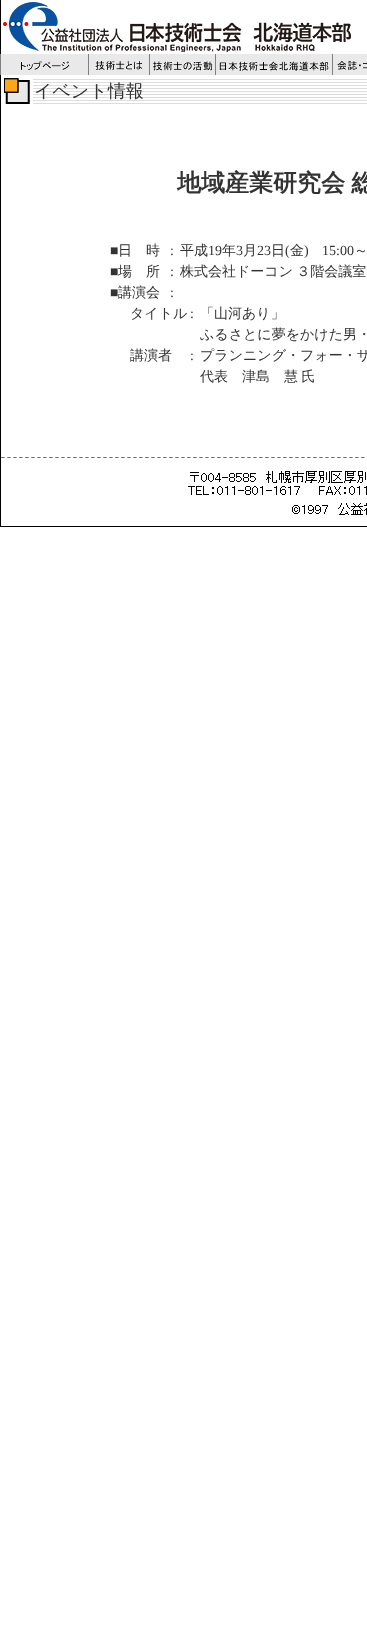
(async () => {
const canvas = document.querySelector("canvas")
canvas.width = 367
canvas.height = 1635
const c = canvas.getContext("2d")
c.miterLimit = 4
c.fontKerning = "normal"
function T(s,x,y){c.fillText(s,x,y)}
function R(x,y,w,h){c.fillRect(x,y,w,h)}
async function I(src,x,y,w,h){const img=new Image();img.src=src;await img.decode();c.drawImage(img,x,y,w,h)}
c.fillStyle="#fff"
R(0,0,367,1635)
c.fillStyle="#000"
R(0,0,1,54)
await I("1.png",1,0,366,54)
c.fillStyle="#808080"
R(0,54,1,21)
c.fillStyle="#e9e9e9"
R(1,54,87,21)
await I("2.png",21,61,49,10)
c.fillStyle="#808080"
R(88,54,1,21)
c.fillStyle="#e9e9e9"
R(89,54,60,21)
await I("3.png",95,60,48,10)
c.fillStyle="#808080"
R(149,54,1,21)
c.fillStyle="#e9e9e9"
R(150,54,65,21)
await I("4.png",153,61,60,10)
c.fillStyle="#808080"
R(215,54,1,21)
c.fillStyle="#e9e9e9"
R(216,54,116,21)
await I("5.png",219,61,110,10)
c.fillStyle="#808080"
R(332,54,1,21)
c.fillStyle="#e9e9e9"
R(333,54,34,21)
await I("6.png",337,60,30,10)
c.fillStyle="#000"
R(0,75,1,342)
await I("7.png",4,78,26,26)
await I("8.png",33,79,334,25)
c.font="500 18px WenQuanYi Zen Hei"
c.fillStyle="#333"
T("イベント情報",34,97)
c.wordSpacing="-1px"
c.font="bold 24px WenQuanYi Zen Hei"
T("地域産業研究会 総",177,191)
c.wordSpacing="0px"
c.font="14px Liberation Serif"
T("■",110,255)
c.font="500 14px WenQuanYi Zen Hei"
T("日　時",118,255)
c.font="14px Liberation Serif"
T(":",170,255)
c.font="500 14px WenQuanYi Zen Hei"
T("平成",180,255)
c.font="14px Liberation Serif"
T("19",208,255)
c.font="500 14px WenQuanYi Zen Hei"
T("年",222,255)
c.font="14px Liberation Serif"
T("3",236,255)
c.font="500 14px WenQuanYi Zen Hei"
T("月",243,255)
c.font="14px Liberation Serif"
T("23",257,255)
c.font="500 14px WenQuanYi Zen Hei"
T("日",271,255)
c.font="14px Liberation Serif"
T("(",285,255)
c.font="500 14px WenQuanYi Zen Hei"
T("金",290,255)
c.font="14px Liberation Serif"
T(")",304,255)
T("15:00",322,255)
c.font="500 14px WenQuanYi Zen Hei"
T("～",354,255)
c.font="14px Liberation Serif"
T("■",110,276)
c.font="500 14px WenQuanYi Zen Hei"
T("場　所",118,276)
c.font="14px Liberation Serif"
T(":",170,276)
c.wordSpacing="-1px"
c.font="500 14px WenQuanYi Zen Hei"
T("株式会社ドーコン ３階会議室",180,276)
c.wordSpacing="0px"
c.font="14px Liberation Serif"
T("■",110,297)
c.font="500 14px WenQuanYi Zen Hei"
T("講演会",118,297)
c.font="14px Liberation Serif"
T(":",170,297)
c.font="500 14px WenQuanYi Zen Hei"
T("タイトル",130,318)
c.font="14px Liberation Serif"
T(":",190,318)
c.font="500 14px WenQuanYi Zen Hei"
T("「山河あり」",200,318)
c.wordSpacing="-1px"
T("ふるさとに夢をかけた男・",200,339)
c.wordSpacing="0px"
T("講演者",130,360)
c.font="14px Liberation Serif"
T(":",190,360)
c.font="500 14px WenQuanYi Zen Hei"
T("プランニング・フォー・ザ",200,360)
c.wordSpacing="-1px"
T("代表　津島　慧 氏",200,381)
c.fillStyle="#000"
R(0,526,367,1)
R(0,417,1,110)
await I("9.png",1,457,364,1)
await I("10.png",188,471,179,44)
})()
